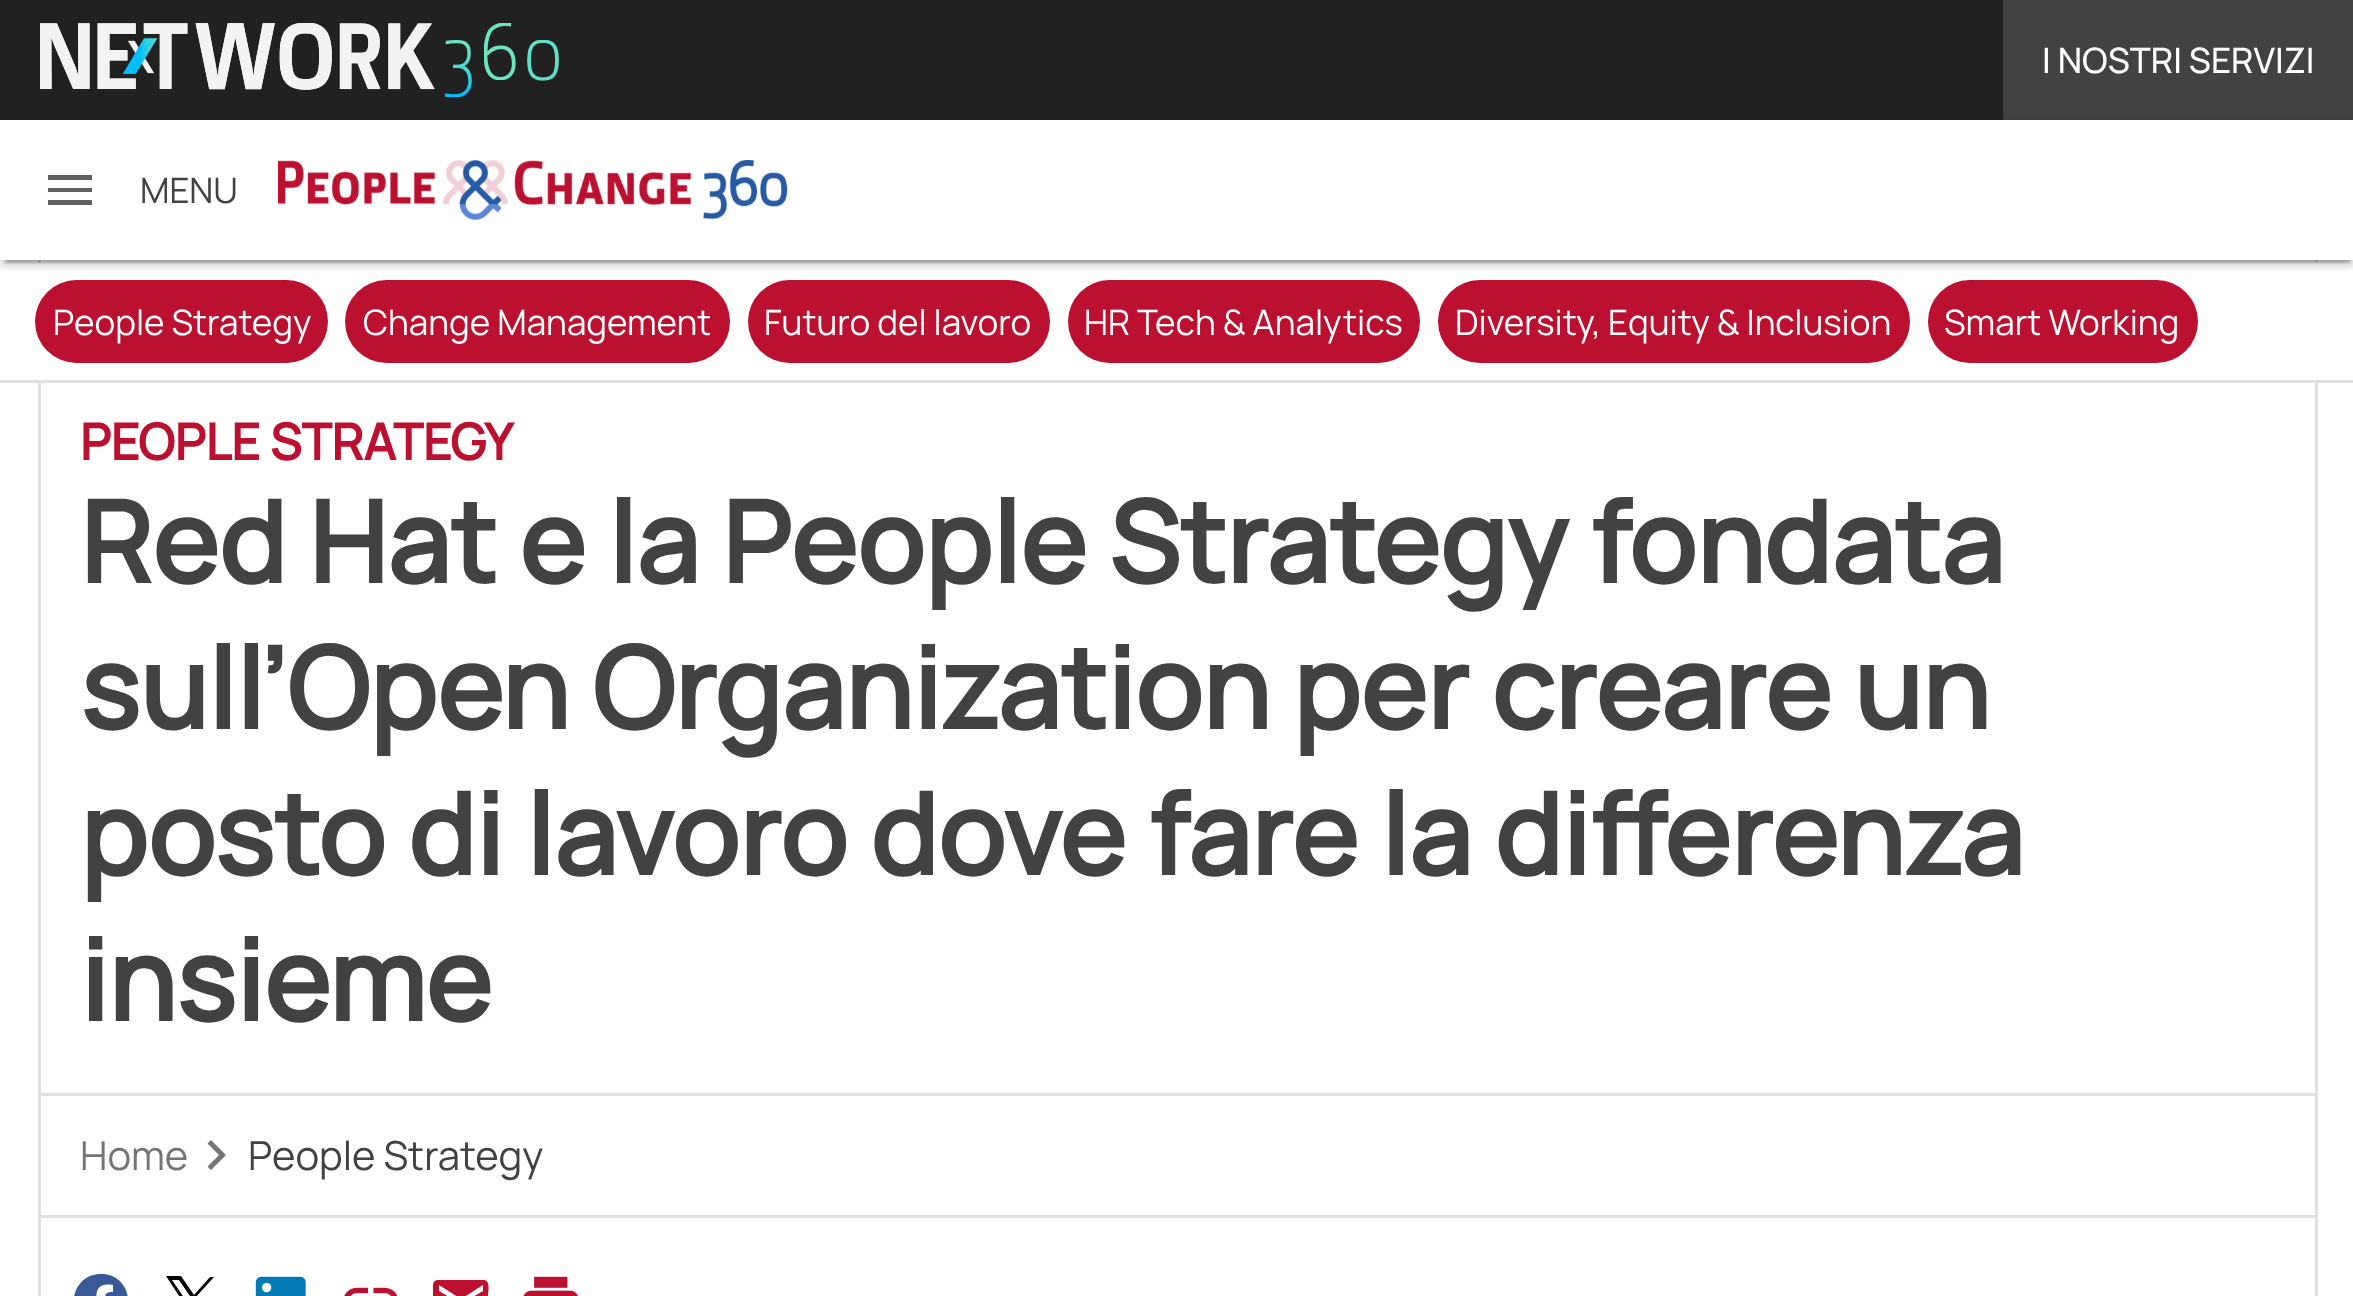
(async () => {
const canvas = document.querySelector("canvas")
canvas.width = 2353
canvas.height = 1296
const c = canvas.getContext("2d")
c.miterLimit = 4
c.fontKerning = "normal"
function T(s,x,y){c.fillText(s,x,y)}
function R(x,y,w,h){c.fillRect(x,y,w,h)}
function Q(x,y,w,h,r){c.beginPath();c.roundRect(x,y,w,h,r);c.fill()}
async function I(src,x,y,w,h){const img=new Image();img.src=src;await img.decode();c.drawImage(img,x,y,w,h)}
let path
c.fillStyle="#fff"
R(0,0,2353,1296)
c.fillStyle="#e0e0e0"
R(40,1093,2275,3)
c.fillStyle="#757575"
path = new Path2D("M219 1155l-11.5-11.5l3.5-3.5l15 15l-15 15l-3.5-3.5z")
c.fill(path)
c.fillStyle="#e0e0e0"
R(40,1215,2275,3)
c.fillStyle="#3b5998"
path = new Path2D("M101 1274c-34 0-37 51-5 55v-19h-7v-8h7c0-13 2-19 17-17v7c-8 0-8 2-8 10h8l-1 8h-7v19c33-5 30-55-4-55z")
c.fill(path)
c.fillStyle="#000"
path = new Path2D("M195 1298l19-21h-4l-16 18l-13-19h-15l19 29l-19 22h4l17-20l14 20h15zm-6 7l-17-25h7l30 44h-6z")
c.fill(path)
await I("3.png",255,1276,51,20)
await I("4.png",344,1287,54,9)
c.fillStyle="#bc1030"
path = new Path2D("M483 1291l-22 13l-22-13v-6l22 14l22-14zm0-11h-46c-5 1-4 7-4 11v5c0 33-5 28 28 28h15c11 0 12 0 12-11v-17c0-4 3-17-5-16z")
c.fill(path)
await I("5.png",523,1276,55,20)
c.strokeStyle="#e0e0e0"
c.lineWidth=3
c.strokeRect(39.5,1.5,2277,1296)
c.fillStyle="#212121"
R(0,0,2003,120)
await I("1.png",40,23,519,74)
c.fillStyle="#424242"
R(2003,0,350,120)
c.font="500 35px Manrope"
c.fillStyle="#fff"
T("I NOSTRI SERVIZI",2042,73)
R(2315,120,3,140)
R(38,263,2280,117)
c.save()
c.beginPath()
c.rect(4,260,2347,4)
c.clip()
c.fillStyle="#00000033"
c.filter="blur(1px)"
c.beginPath()
c.rect(5,133,2345,130)
c.fill()
c.filter="none"
c.restore()
c.fillStyle="#bc1030"
Q(35,280,293,83,41.5)
Q(345,280,385,83,41.5)
Q(748,280,302,83,41.5)
Q(1068,280,352,83,41.5)
Q(1438,280,472,83,41.5)
Q(1928,280,270,83,41.5)
c.save()
path = new Path2D("M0 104h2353v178h-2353zm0 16h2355v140h-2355z")
c.clip(path,"evenodd")
c.fillStyle="#0000001f"
c.filter="blur(6px)"
c.beginPath()
c.rect(0,123,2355,140)
c.fill()
c.filter="none"
c.restore()
c.save()
c.beginPath()
c.rect(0,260,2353,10)
c.clip()
c.fillStyle="#00000024"
c.filter="blur(5px)"
c.beginPath()
c.rect(0,125,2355,140)
c.fill()
c.filter="none"
c.restore()
c.fillStyle="#fff"
R(38,120,3,140)
c.fillStyle="#616161"
path = new Path2D("M48 205v-5h44v5zm0-13v-4h44v4zm0-12v-5h44v5z")
c.fill(path)
c.font="35px Manrope"
c.fillStyle="#424242"
T("MENU",140,203)
await I("2.png",278,160,510,60)
c.fillStyle="#e0e0e0"
R(0,380,2353,3)
c.fillStyle="#fff"
T("People Strategy",53,335)
T("Change Management",363,335)
T("Futuro del lavoro",764,335)
T("HR Tech & Analytics",1084,335)
T("Diversity, Equity & Inclusion",1455,335)
T("Smart Working",1944,335)
c.font="bold 50px Manrope"
c.fillStyle="#bc1030"
T("PEOPLE STRATEGY",80,460)
c.font="bold 112.5px Manrope"
c.fillStyle="#424242"
T("Red Hat e la People Strategy fondata",80,583)
T("sull’Open Organization per creare un",80,729)
T("posto di lavoro dove fare la differenza",80,875)
T("insieme",80,1021)
c.font="40px Manrope"
c.fillStyle="#757575"
T("Home",80,1170)
c.fillStyle="#424242"
T("People Strategy",248,1170)
})()
